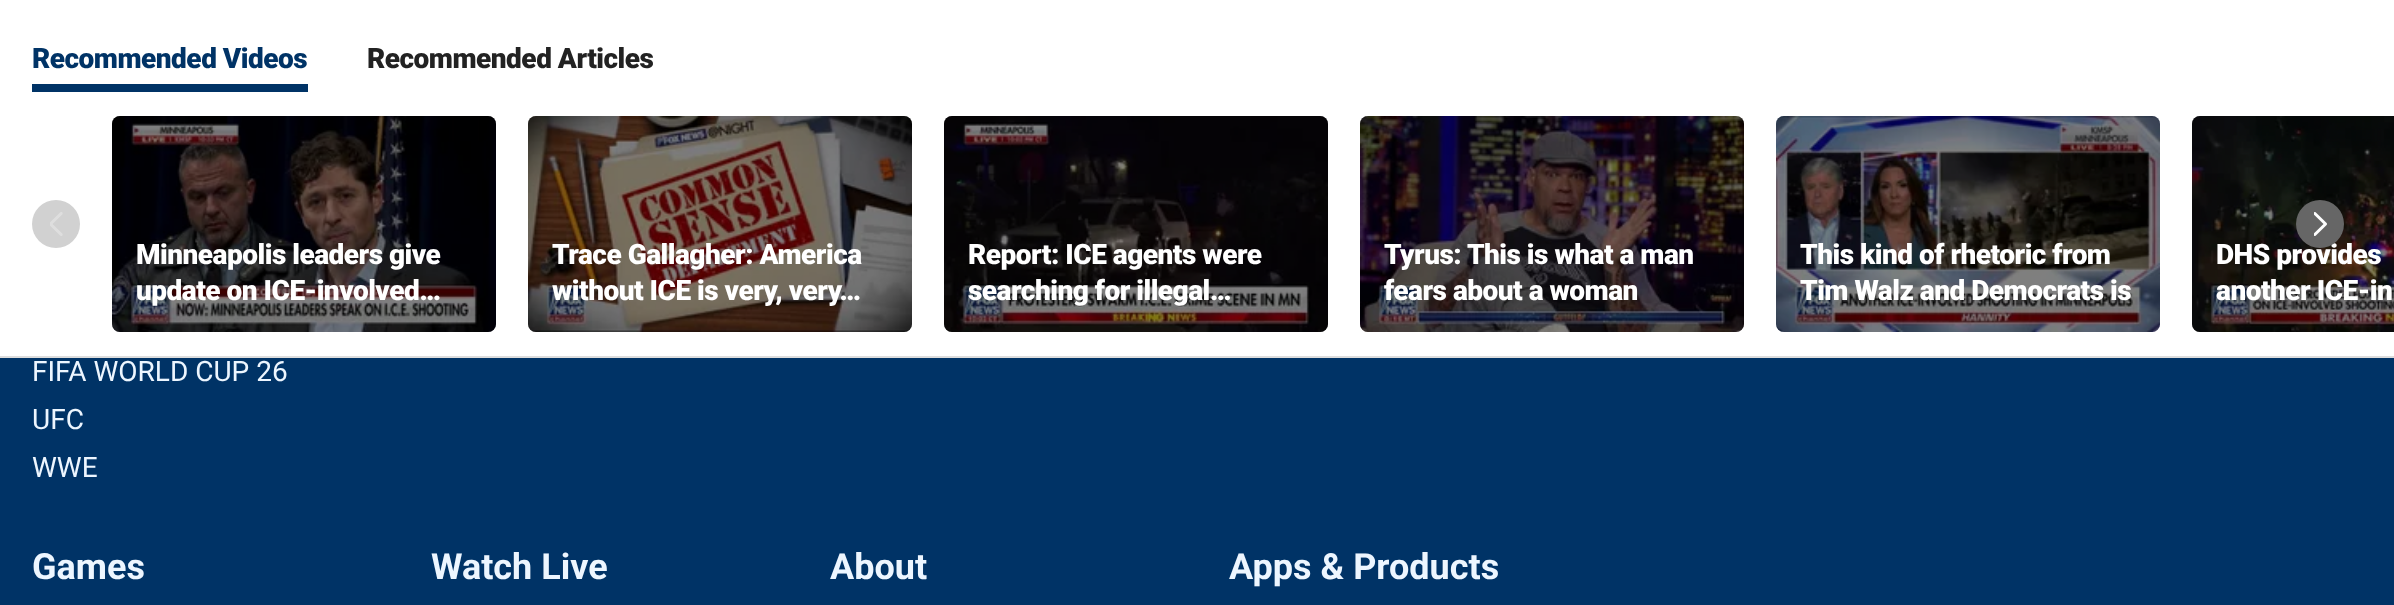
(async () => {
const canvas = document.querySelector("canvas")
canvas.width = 2394
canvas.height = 605
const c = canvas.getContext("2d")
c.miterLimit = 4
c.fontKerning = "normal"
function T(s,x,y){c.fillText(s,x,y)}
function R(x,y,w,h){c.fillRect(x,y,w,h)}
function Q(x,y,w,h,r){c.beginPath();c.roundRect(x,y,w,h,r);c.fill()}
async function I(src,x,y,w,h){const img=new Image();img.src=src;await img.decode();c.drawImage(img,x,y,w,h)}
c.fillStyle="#036"
R(0,0,2394,605)
c.fillStyle="#fff"
R(0,0,2394,356)
c.letterSpacing="-0.5px"
c.font="900 28px Roboto"
c.fillStyle="#036"
T("Recommended Videos",32,68)
R(32,84,276,8)
c.fillStyle="#222"
T("Recommended Articles",367,68)
c.fillStyle="#ddd"
R(0,356,2394,2)
c.fillStyle="#d1d1d1"
c.beginPath()
c.arc(56,224,24,0,7)
c.fill()
await I("1.png",50,212,13,24)
c.fillStyle="#f4f4f4"
c.beginPath()
c.roundRect(2192,116,202,216,[8,0,0,8])
c.fill()
await I("8.png",2192,116,202,216)
c.fillStyle="#00000080"
c.beginPath()
c.roundRect(2192,116,202,216,[8,0,0,8])
c.fill()
c.fillStyle="#fff"
T("DHS provides",2216,264)
c.fillStyle="#666"
c.beginPath()
c.arc(2320,224,24,0,7)
c.fill()
await I("2.png",2314,212,13,24)
c.fillStyle="#f4f4f4"
Q(112,116,384,216,8)
await I("3.png",112,116,384,216)
c.fillStyle="#00000080"
Q(112,116,384,216,8)
c.fillStyle="#fff"
T("Minneapolis leaders give",136,264)
T("update on ICE-involved…",136,300)
c.fillStyle="#f4f4f4"
Q(528,116,384,216,8)
await I("4.png",528,116,384,216)
c.fillStyle="#00000080"
Q(528,116,384,216,8)
c.fillStyle="#fff"
T("Trace Gallagher: America",552,264)
T("without ICE is very, very…",552,300)
c.fillStyle="#f4f4f4"
Q(944,116,384,216,8)
await I("5.png",944,116,384,216)
c.fillStyle="#00000080"
Q(944,116,384,216,8)
c.fillStyle="#fff"
T("Report: ICE agents were",968,264)
T("searching for illegal…",968,300)
c.fillStyle="#f4f4f4"
Q(1360,116,384,216,8)
await I("6.png",1360,116,384,216)
c.fillStyle="#00000080"
Q(1360,116,384,216,8)
c.fillStyle="#fff"
T("Tyrus: This is what a man",1384,264)
T("fears about a woman",1384,300)
c.fillStyle="#f4f4f4"
Q(1776,116,384,216,8)
await I("7.png",1776,116,384,216)
c.fillStyle="#00000080"
Q(1776,116,384,216,8)
c.fillStyle="#fff"
T("This kind of rhetoric from",1800,264)
T("Tim Walz and Democrats is",1800,300)
T("another ICE-in",2216,300)
c.letterSpacing="0px"
c.font="28px Roboto"
c.fillStyle="#edf6ff"
T("FIFA WORLD CUP 26",32,381)
T("UFC",32,429)
T("WWE",32,477)
c.font="bold 36px Roboto"
T("Games",32,579)
T("Watch Live",431,579)
T("About",830,579)
T("Apps & Products",1229,579)
})()
